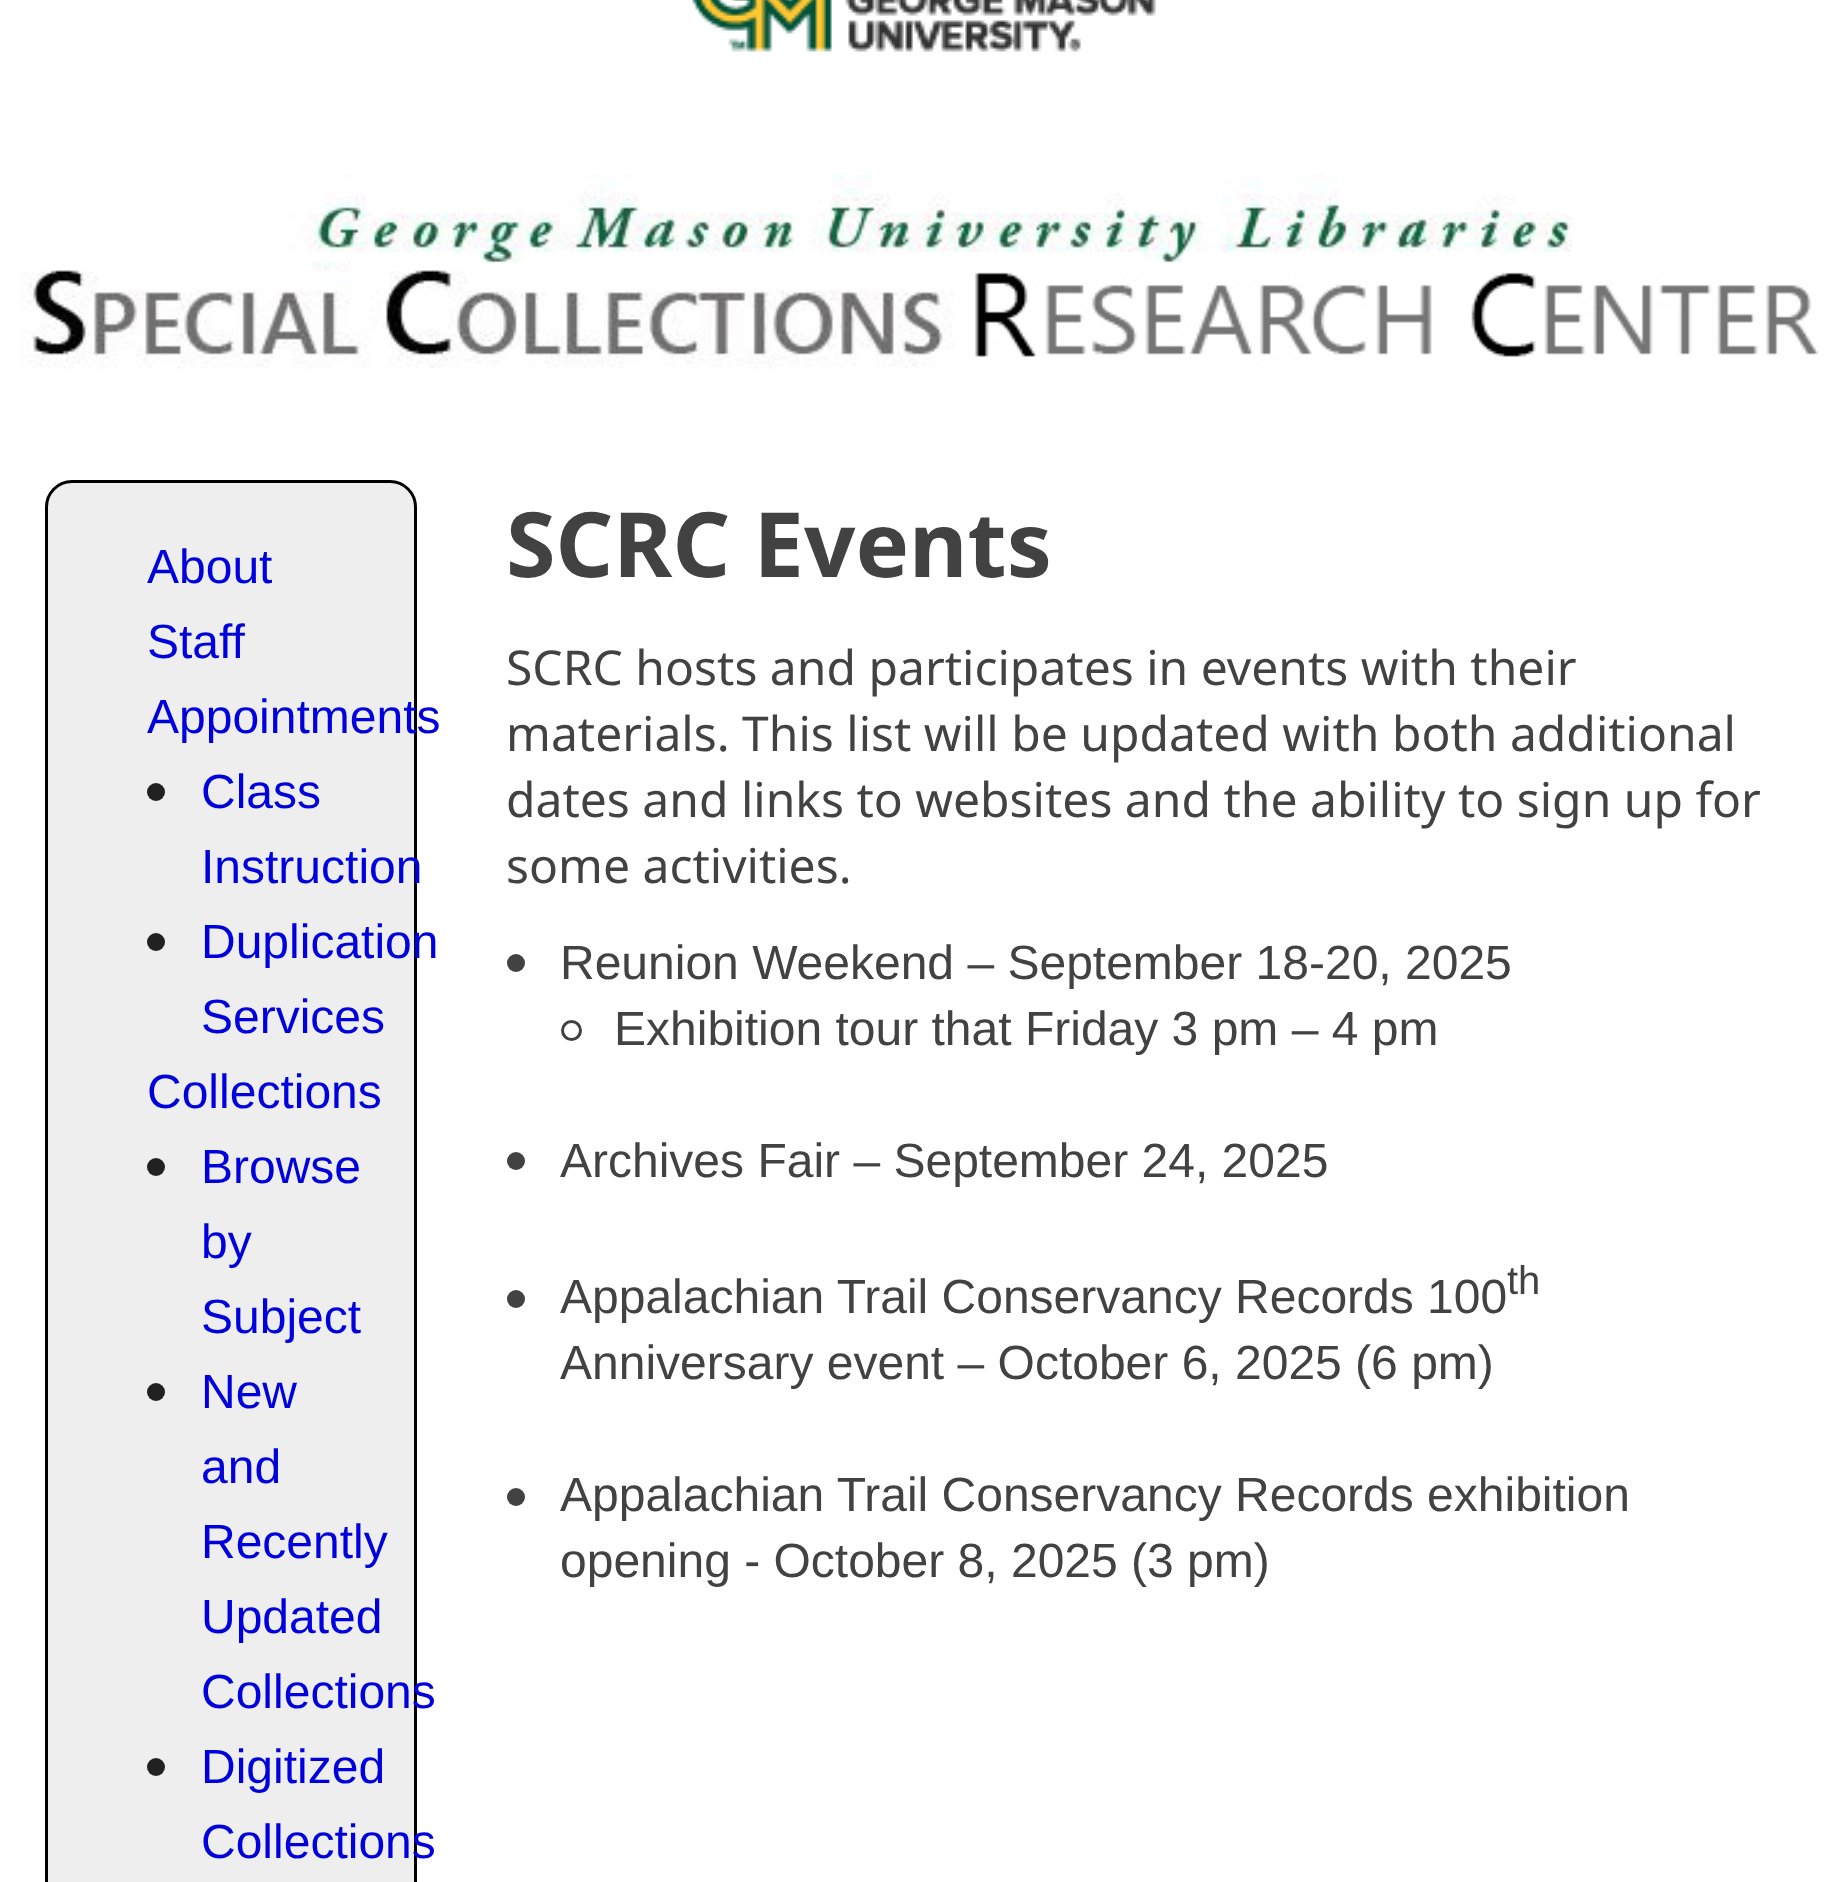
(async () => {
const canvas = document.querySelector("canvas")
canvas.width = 1840
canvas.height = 1882
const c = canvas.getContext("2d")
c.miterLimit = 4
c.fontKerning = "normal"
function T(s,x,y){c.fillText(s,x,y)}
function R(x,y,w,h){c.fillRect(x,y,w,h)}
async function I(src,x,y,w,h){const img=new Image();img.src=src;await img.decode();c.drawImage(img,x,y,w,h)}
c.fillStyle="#fff"
R(0,0,1840,1882)
await I("1.png",692,0,464,52)
await I("2.png",20,174,1799,195)
c.fillStyle="#eee"
c.beginPath()
c.roundRect(46.5,481.5,369,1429,25.5)
c.fill()
c.strokeStyle="#000"
c.lineWidth=3
c.stroke()
c.font="48px Liberation Sans"
c.fillStyle="#00d"
T("About",147,583)
T("Staff",147,658)
T("Appointments",147,733)
c.fillStyle="#212121"
c.beginPath()
c.arc(156,792,9,0,7)
c.fill()
c.fillStyle="#00d"
T("Class",201,808)
T("Instruction",201,883)
c.fillStyle="#212121"
c.beginPath()
c.arc(156,942,9,0,7)
c.fill()
c.fillStyle="#00d"
T("Duplication",201,958)
T("Services",201,1033)
T("Collections",147,1108)
c.fillStyle="#212121"
c.beginPath()
c.arc(156,1167,9,0,7)
c.fill()
c.fillStyle="#00d"
T("Browse",201,1183)
T("by",201,1258)
T("Subject",201,1333)
c.fillStyle="#212121"
c.beginPath()
c.arc(156,1392,9,0,7)
c.fill()
c.fillStyle="#00d"
T("New",201,1408)
T("and",201,1483)
T("Recently",201,1558)
T("Updated",201,1633)
T("Collections",201,1708)
c.fillStyle="#212121"
c.beginPath()
c.arc(156,1767,9,0,7)
c.fill()
c.fillStyle="#00d"
T("Digitized",201,1783)
T("Collections",201,1858)
c.font="bold 90px Noto Sans"
c.fillStyle="#424242"
T("SCRC Events",506,577)
c.font="48px Noto Sans"
T("SCRC hosts and participates in events with their",506,685)
T("materials. This list will be updated with both additional",506,751)
T("dates and links to websites and the ability to sign up for",506,817)
T("some activities.",506,883)
c.beginPath()
c.arc(516,963,9,0,7)
c.fill()
c.font="48px Liberation Sans"
T("Reunion Weekend – September 18-20, 2025",560,979)
c.beginPath()
c.arc(571.5,1030.5,9,0,7)
c.strokeStyle="#424242"
c.stroke()
T("Exhibition tour that Friday 3 pm – 4 pm",614,1045)
c.beginPath()
c.arc(516,1161,9,0,7)
c.fill()
T("Archives Fair – September 24, 2025",560,1177)
c.beginPath()
c.arc(516,1299,9,0,7)
c.fill()
T("Appalachian Trail Conservancy Records 100",560,1313)
c.font="40px Liberation Sans"
T("th",1507,1294)
c.font="48px Liberation Sans"
T("Anniversary event – October 6, 2025 (6 pm)",560,1379)
c.beginPath()
c.arc(516,1497,9,0,7)
c.fill()
T("Appalachian Trail Conservancy Records exhibition",560,1511)
T("opening - October 8, 2025 (3 pm)",560,1577)
})()
